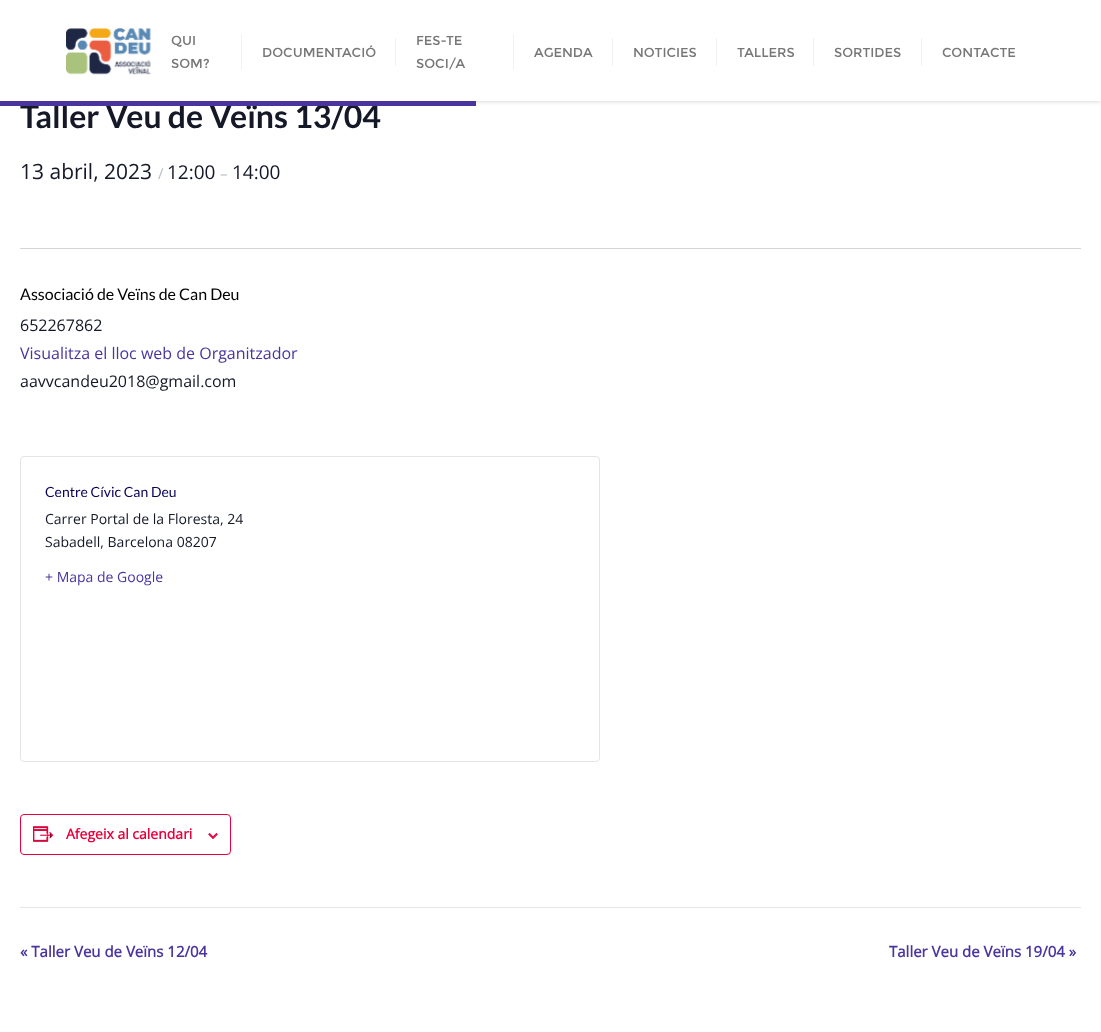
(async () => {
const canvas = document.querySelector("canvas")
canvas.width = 1101
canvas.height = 1032
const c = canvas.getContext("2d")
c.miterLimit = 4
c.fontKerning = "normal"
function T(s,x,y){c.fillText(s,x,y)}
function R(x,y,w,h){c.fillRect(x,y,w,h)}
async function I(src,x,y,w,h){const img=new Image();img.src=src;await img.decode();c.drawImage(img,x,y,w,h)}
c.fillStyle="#fff"
R(0,0,1101,1032)
c.fillStyle="#ccc"
c.filter="blur(2.5px)"
c.beginPath()
c.rect(0,0,1101,101)
c.fill()
c.filter="none"
c.fillStyle="#fff"
R(0,0,1101,101)
await I("1.png",66,28,85,47)
c.font="13px Montserrat"
c.fillStyle="#777"
T("QUI",171,45)
c.fillStyle="#f1f1f1"
R(241,34,1,36)
c.fillStyle="#777"
T("SOM?",171,68)
T("DOCUMENTACIÓ",262,57)
c.fillStyle="#f1f1f1"
R(395,38,1,28)
c.fillStyle="#777"
T("FES-TE",416,45)
c.fillStyle="#f1f1f1"
R(513,34,1,36)
c.fillStyle="#777"
T("SOCI/A",416,68)
T("AGENDA",534,57)
c.fillStyle="#f1f1f1"
R(612,38,1,28)
c.fillStyle="#777"
T("NOTICIES",633,57)
c.fillStyle="#f1f1f1"
R(716,38,1,28)
c.fillStyle="#777"
T("TALLERS",737,57)
c.fillStyle="#f1f1f1"
R(813,38,1,28)
c.fillStyle="#777"
T("SORTIDES",834,57)
c.fillStyle="#f1f1f1"
R(921,38,1,28)
c.fillStyle="#777"
T("CONTACTE",942,57)
c.font="bold 32px Lato"
c.fillStyle="#141827"
T("Taller Veu de Veïns 13/04",20,128)
c.fillStyle="#4a359e"
R(0,101,476,5)
c.font="21px Open Sans"
c.fillStyle="#141827"
T("13 abril, 2023",20,179)
c.font="15px Open Sans"
c.fillStyle="#b9bec2"
T("/",158,179)
c.font="19px Open Sans"
c.fillStyle="#141827"
T("12:00",167,179)
c.font="15px Open Sans"
c.fillStyle="#b9bec2"
T("–",220,179)
c.font="19px Open Sans"
c.fillStyle="#141827"
T("14:00",232,179)
c.fillStyle="#d5d5d5"
R(20,248,1061,1)
c.font="16px Lato"
c.fillStyle="#000"
T("Associació de Veïns de Can Deu",20,300)
c.font="16px Open Sans"
c.fillStyle="#141827"
T("652267862",20,331)
c.fillStyle="#4a359e"
T("Visualitza el lloc web de Organitzador",20,359)
c.fillStyle="#141827"
T("aavvcandeu2018@gmail.com",20,387)
c.beginPath()
c.roundRect(20.5,456.5,579,305,3.5)
c.strokeStyle="#e4e4e4"
c.stroke()
c.font="14px Lato"
c.fillStyle="#070054"
T("Centre Cívic Can Deu",45,497)
c.font="14px Open Sans"
c.fillStyle="#141827"
T("Carrer Portal de la Floresta, 24",45,524)
T("Sabadell, Barcelona 08207",45,547)
c.fillStyle="#4a359e"
T("+ Mapa de Google",45,582)
c.beginPath()
c.roundRect(20.5,814.5,210,40,3.5)
c.strokeStyle="#e8003d"
c.stroke()
await I("2.png",33,826,21,16)
c.font="bold 14px Open Sans"
c.fillStyle="#e8003d"
T("Afegeix al calendari",66,839)
await I("3.png",208,833,10,6)
c.fillStyle="#e5e5e5"
R(20,907,1061,1)
c.font="bold 15px Open Sans"
c.fillStyle="#4a359e"
T("« Taller Veu de Veïns 12/04",20,957)
T("Taller Veu de Veïns 19/04 »",889,957)
})()
